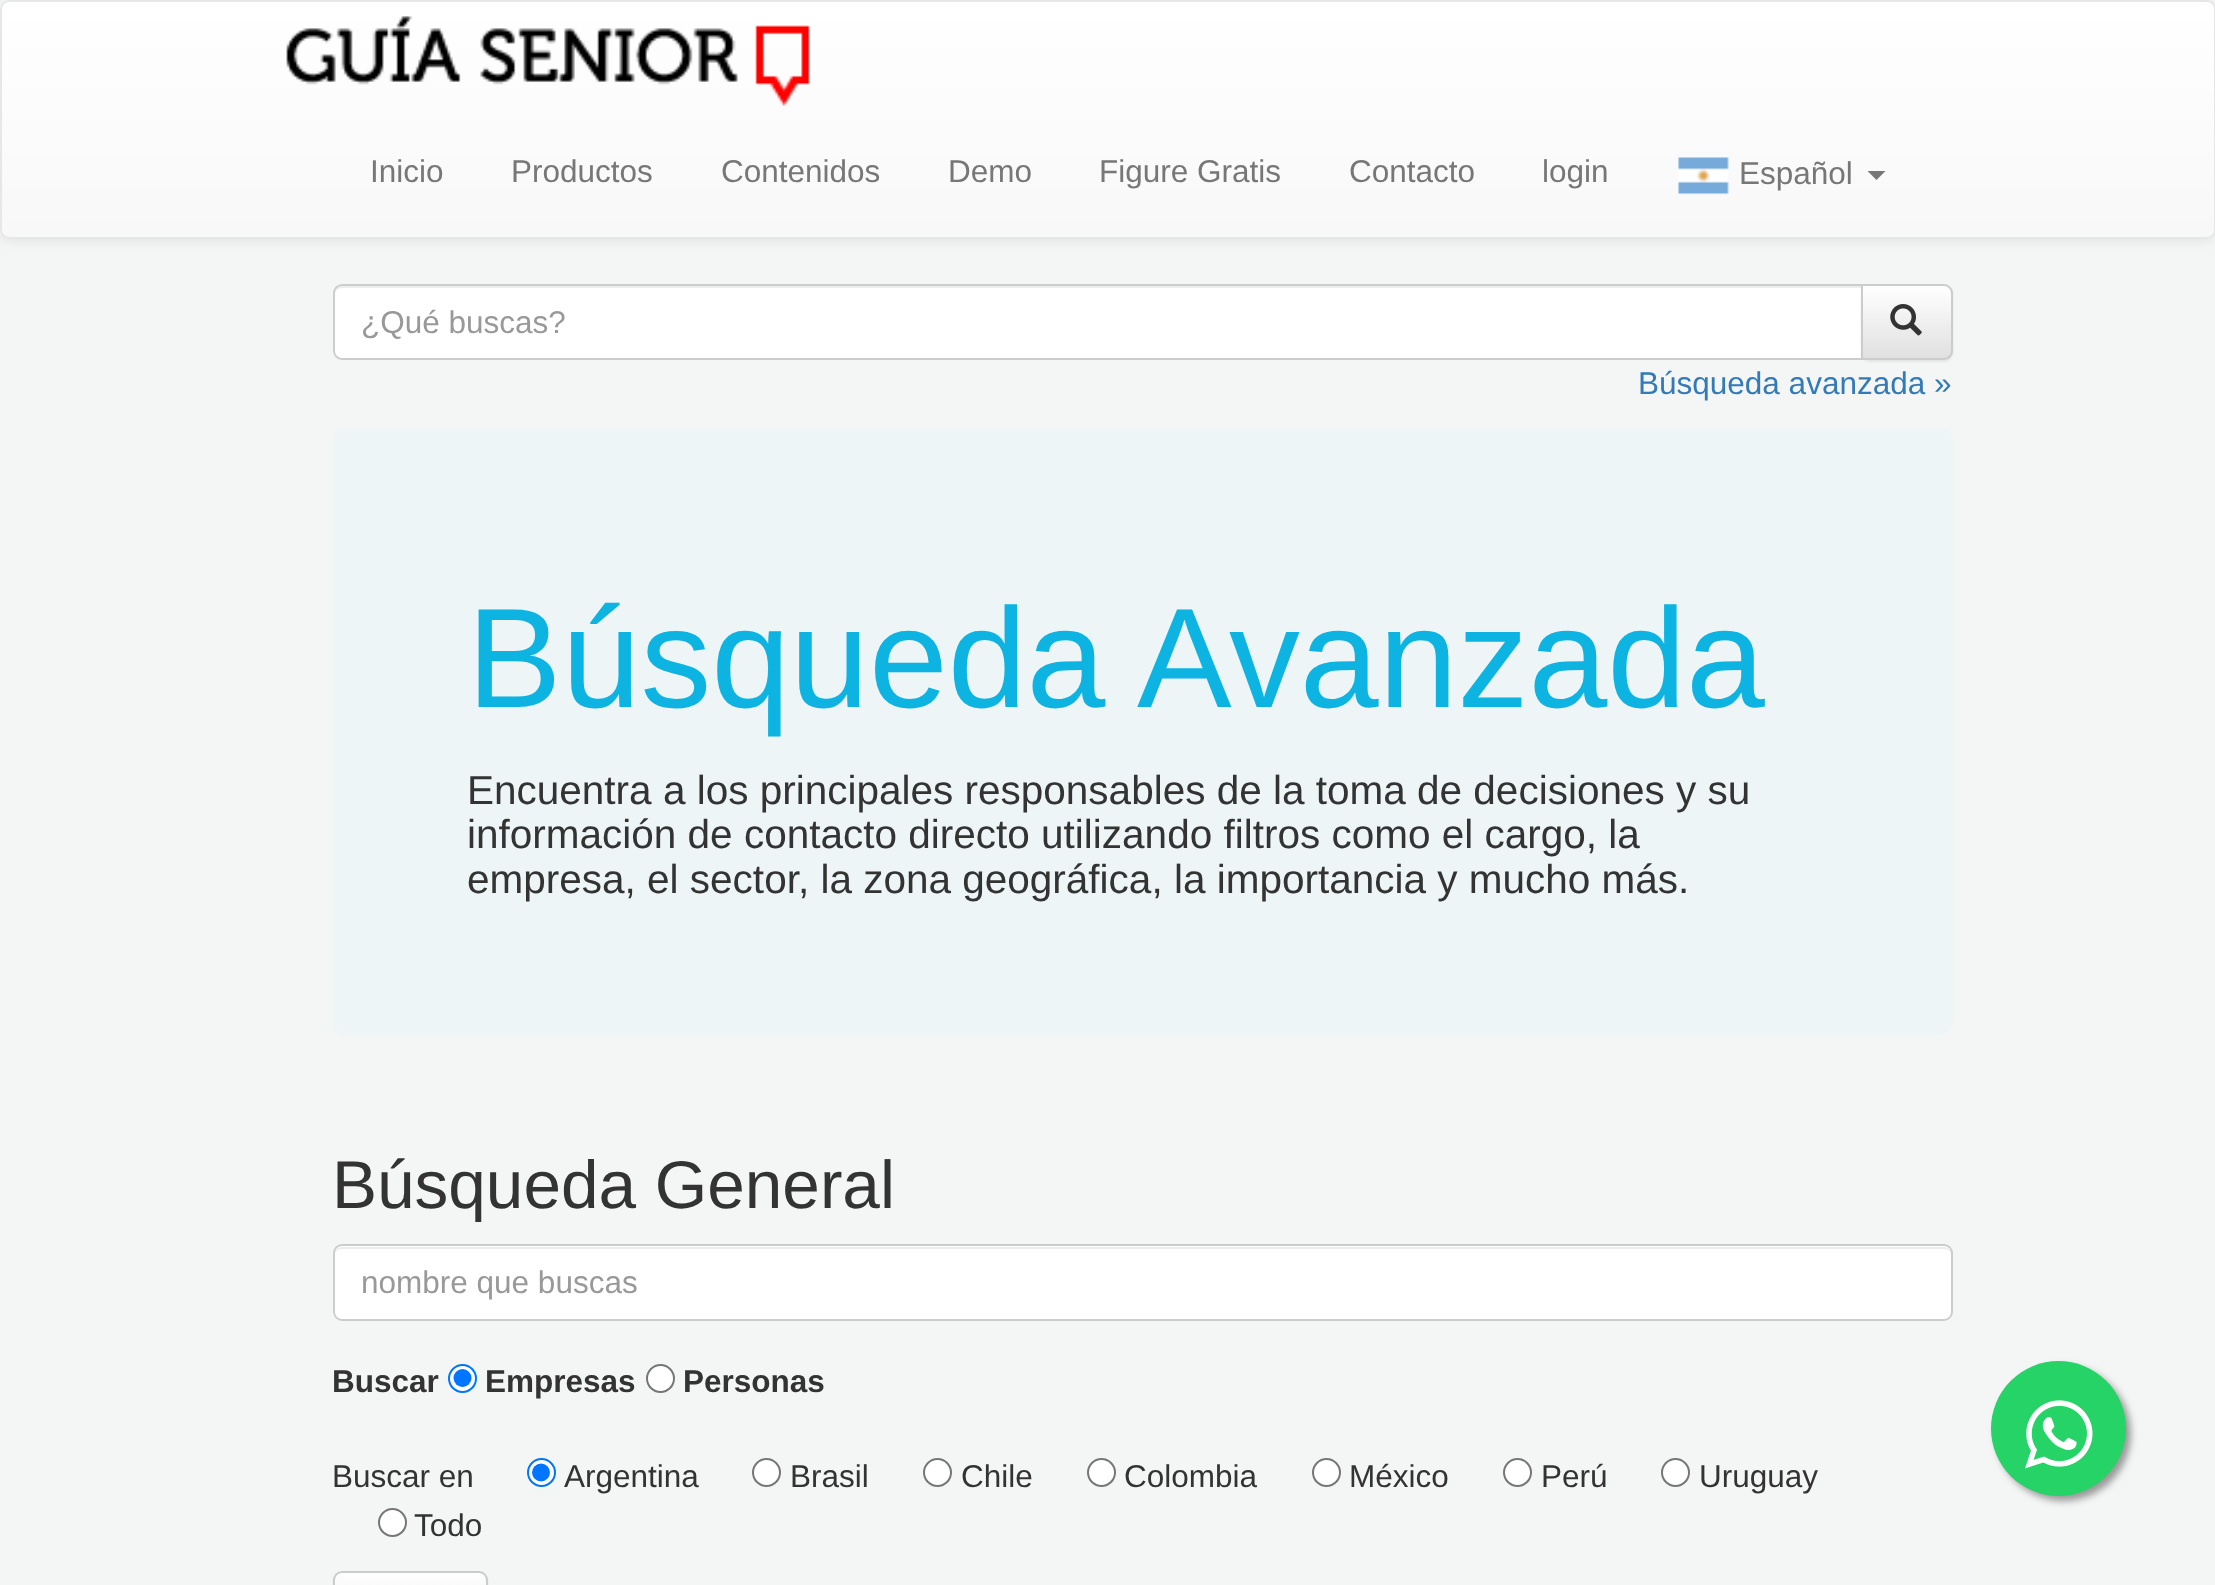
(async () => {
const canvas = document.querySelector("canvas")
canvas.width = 2215
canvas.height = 1585
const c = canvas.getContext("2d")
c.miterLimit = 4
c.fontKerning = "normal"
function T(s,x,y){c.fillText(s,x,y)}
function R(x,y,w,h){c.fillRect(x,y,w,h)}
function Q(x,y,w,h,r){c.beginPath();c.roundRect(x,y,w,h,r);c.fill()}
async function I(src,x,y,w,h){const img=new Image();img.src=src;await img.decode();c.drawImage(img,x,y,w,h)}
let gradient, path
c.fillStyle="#f4f6f6"
R(0,0,2215,1585)
c.fillStyle="#00000012"
c.filter="blur(5.5px)"
c.beginPath()
c.roundRect(0,2,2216,239,9)
c.fill()
c.filter="none"
c.fillStyle="#f8f8f8"
Q(0,0,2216,239,9)
c.save()
c.beginPath()
c.roundRect(0,0,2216,239,9)
c.clip()
gradient = c.createLinearGradient(1108,2.2,1108,236)
gradient.addColorStop(0,"#fff")
gradient.addColorStop(1,"#f8f8f8")
c.fillStyle = gradient
R(0,2,2215,234)
c.restore()
c.beginPath()
c.roundRect(1,1,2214,237,8)
c.strokeStyle="#e7e7e7"
c.lineWidth=2
c.stroke()
await I("1.png",286,16,524,90)
c.font="31.5px Liberation Sans"
c.fillStyle="#777"
T("Inicio",370,182)
T("Productos",511,182)
T("Contenidos",721,182)
T("Demo",948,182)
T("Figure Gratis",1099,182)
T("Contacto",1349,182)
T("login",1542,182)
await I("2.png",1678,157,51,38)
T("Español",1739,184)
path = new Path2D("M1867.5 171h18l-9 9z")
c.fill(path)
c.fillStyle="#fff"
c.beginPath()
c.roundRect(333,284,1530,76,[9,0,0,9])
c.fill()
c.fillStyle="#ececec"
path = new Path2D("M342 288h1519v-2h-1519c-5 0-7 5-7 9c0-4 3-7 7-7z")
c.fill(path)
c.beginPath()
c.roundRect(334,285,1528,74,[8,0,0,8])
c.strokeStyle="#ccc"
c.stroke()
c.fillStyle="#999"
T("¿Qué buscas?",361,333)
c.fillStyle="#00000012"
c.filter="blur(1px)"
c.beginPath()
c.roundRect(1861,286,92,76,9)
c.fill()
c.filter="none"
c.save()
c.beginPath()
c.roundRect(1861,284,92,76,[0,9,9,0])
c.clip()
gradient = c.createLinearGradient(1907,286,1907,358)
gradient.addColorStop(0,"#fff")
gradient.addColorStop(1,"#e0e0e0")
c.fillStyle = gradient
R(1863,286,90,72)
c.restore()
c.beginPath()
c.roundRect(1862,285,90,74,[0,8,8,0])
c.stroke()
await I("3.png",1890,304,32,32)
c.fillStyle="#337ab7"
T("Búsqueda avanzada »",1638,394)
c.fillStyle="#edf5f7"
Q(333,428,1620,607,14)
c.font="141.75px Liberation Sans"
c.fillStyle="#0eb4e1"
T("Búsqueda Avanzada",467,707)
c.font="40.5px Liberation Sans"
c.fillStyle="#333"
T("Encuentra a los principales responsables de la toma de decisiones y su",467,804)
T("información de contacto directo utilizando filtros como el cargo, la",467,848)
T("empresa, el sector, la zona geográfica, la importancia y mucho más.",467,893)
c.font="67.5px Liberation Sans"
T("Búsqueda General",332,1208)
c.fillStyle="#fff"
Q(333,1244,1620,77,9)
c.fillStyle="#ececec"
path = new Path2D("M342 1249h1602c4 0 7 3 7 7c0-4-2-9-7-9h-1602c-5 0-7 5-7 9c0-4 3-7 7-7z")
c.fill(path)
c.beginPath()
c.roundRect(334,1245,1618,75,8)
c.stroke()
c.font="31.5px Liberation Sans"
c.fillStyle="#999"
T("nombre que buscas",361,1293)
c.font="bold 31.5px Liberation Sans"
c.fillStyle="#333"
T("Buscar",332,1392)
c.fillStyle="#fff"
c.beginPath()
c.arc(462.5,1378.5,13.5,0,7)
c.fill()
c.strokeStyle="#0075ff"
c.stroke()
c.fillStyle="#0075ff"
c.beginPath()
c.arc(462.5,1378,9,0,7)
c.fill()
c.fillStyle="#333"
T("Empresas",485,1392)
c.fillStyle="#fff"
c.beginPath()
c.arc(660.5,1378.5,13.5,0,7)
c.fill()
c.strokeStyle="#767676"
c.stroke()
c.fillStyle="#333"
T("Personas",683,1392)
c.font="31.5px Liberation Sans"
T("Buscar en",332,1487)
c.fillStyle="#fff"
c.beginPath()
c.arc(541.5,1472.5,13.5,0,7)
c.fill()
c.strokeStyle="#0075ff"
c.stroke()
c.fillStyle="#0075ff"
c.beginPath()
c.arc(541,1472.5,9,0,7)
c.fill()
c.fillStyle="#333"
T("Argentina",564,1487)
c.fillStyle="#fff"
c.beginPath()
c.arc(766.5,1472.5,13.5,0,7)
c.fill()
c.strokeStyle="#767676"
c.stroke()
c.fillStyle="#333"
T("Brasil",790,1487)
c.fillStyle="#fff"
c.beginPath()
c.arc(937.5,1472.5,13.5,0,7)
c.fill()
c.stroke()
c.fillStyle="#333"
T("Chile",961,1487)
c.fillStyle="#fff"
c.beginPath()
c.arc(1101.5,1472.5,13.5,0,7)
c.fill()
c.stroke()
c.fillStyle="#333"
T("Colombia",1124,1487)
c.fillStyle="#fff"
c.beginPath()
c.arc(1326.5,1472.5,13.5,0,7)
c.fill()
c.stroke()
c.fillStyle="#333"
T("México",1349,1487)
c.fillStyle="#fff"
c.beginPath()
c.arc(1517.5,1472.5,13.5,0,7)
c.fill()
c.stroke()
c.fillStyle="#333"
T("Perú",1541,1487)
c.fillStyle="#fff"
c.beginPath()
c.arc(1675.5,1472.5,13.5,0,7)
c.fill()
c.stroke()
c.fillStyle="#333"
T("Uruguay",1699,1487)
c.fillStyle="#fff"
c.beginPath()
c.arc(392.5,1522.5,13.5,0,7)
c.fill()
c.stroke()
c.fillStyle="#333"
T("Todo",414,1536)
c.fillStyle="#00000012"
c.filter="blur(1px)"
c.beginPath()
c.roundRect(333,1573,155,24,9)
c.fill()
c.filter="none"
c.save()
c.beginPath()
c.roundRect(333,1571,155,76,9)
c.clip()
gradient = c.createLinearGradient(411,1573,411,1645)
gradient.addColorStop(0,"#fff")
gradient.addColorStop(1,"#e0e0e0")
c.fillStyle = gradient
R(333,1573,155,12)
c.restore()
c.beginPath()
c.roundRect(334,1572,153,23,8)
c.strokeStyle="#ccc"
c.stroke()
c.fillStyle="#999"
c.filter="blur(3.5px)"
c.beginPath()
c.roundRect(1996,1366,135,135,67.5)
c.fill()
c.filter="none"
c.fillStyle="#25d366"
c.beginPath()
c.arc(2058.5,1428.5,67.5,0,7)
c.fill()
await I("4.png",2025,1400,68,69)
})()
